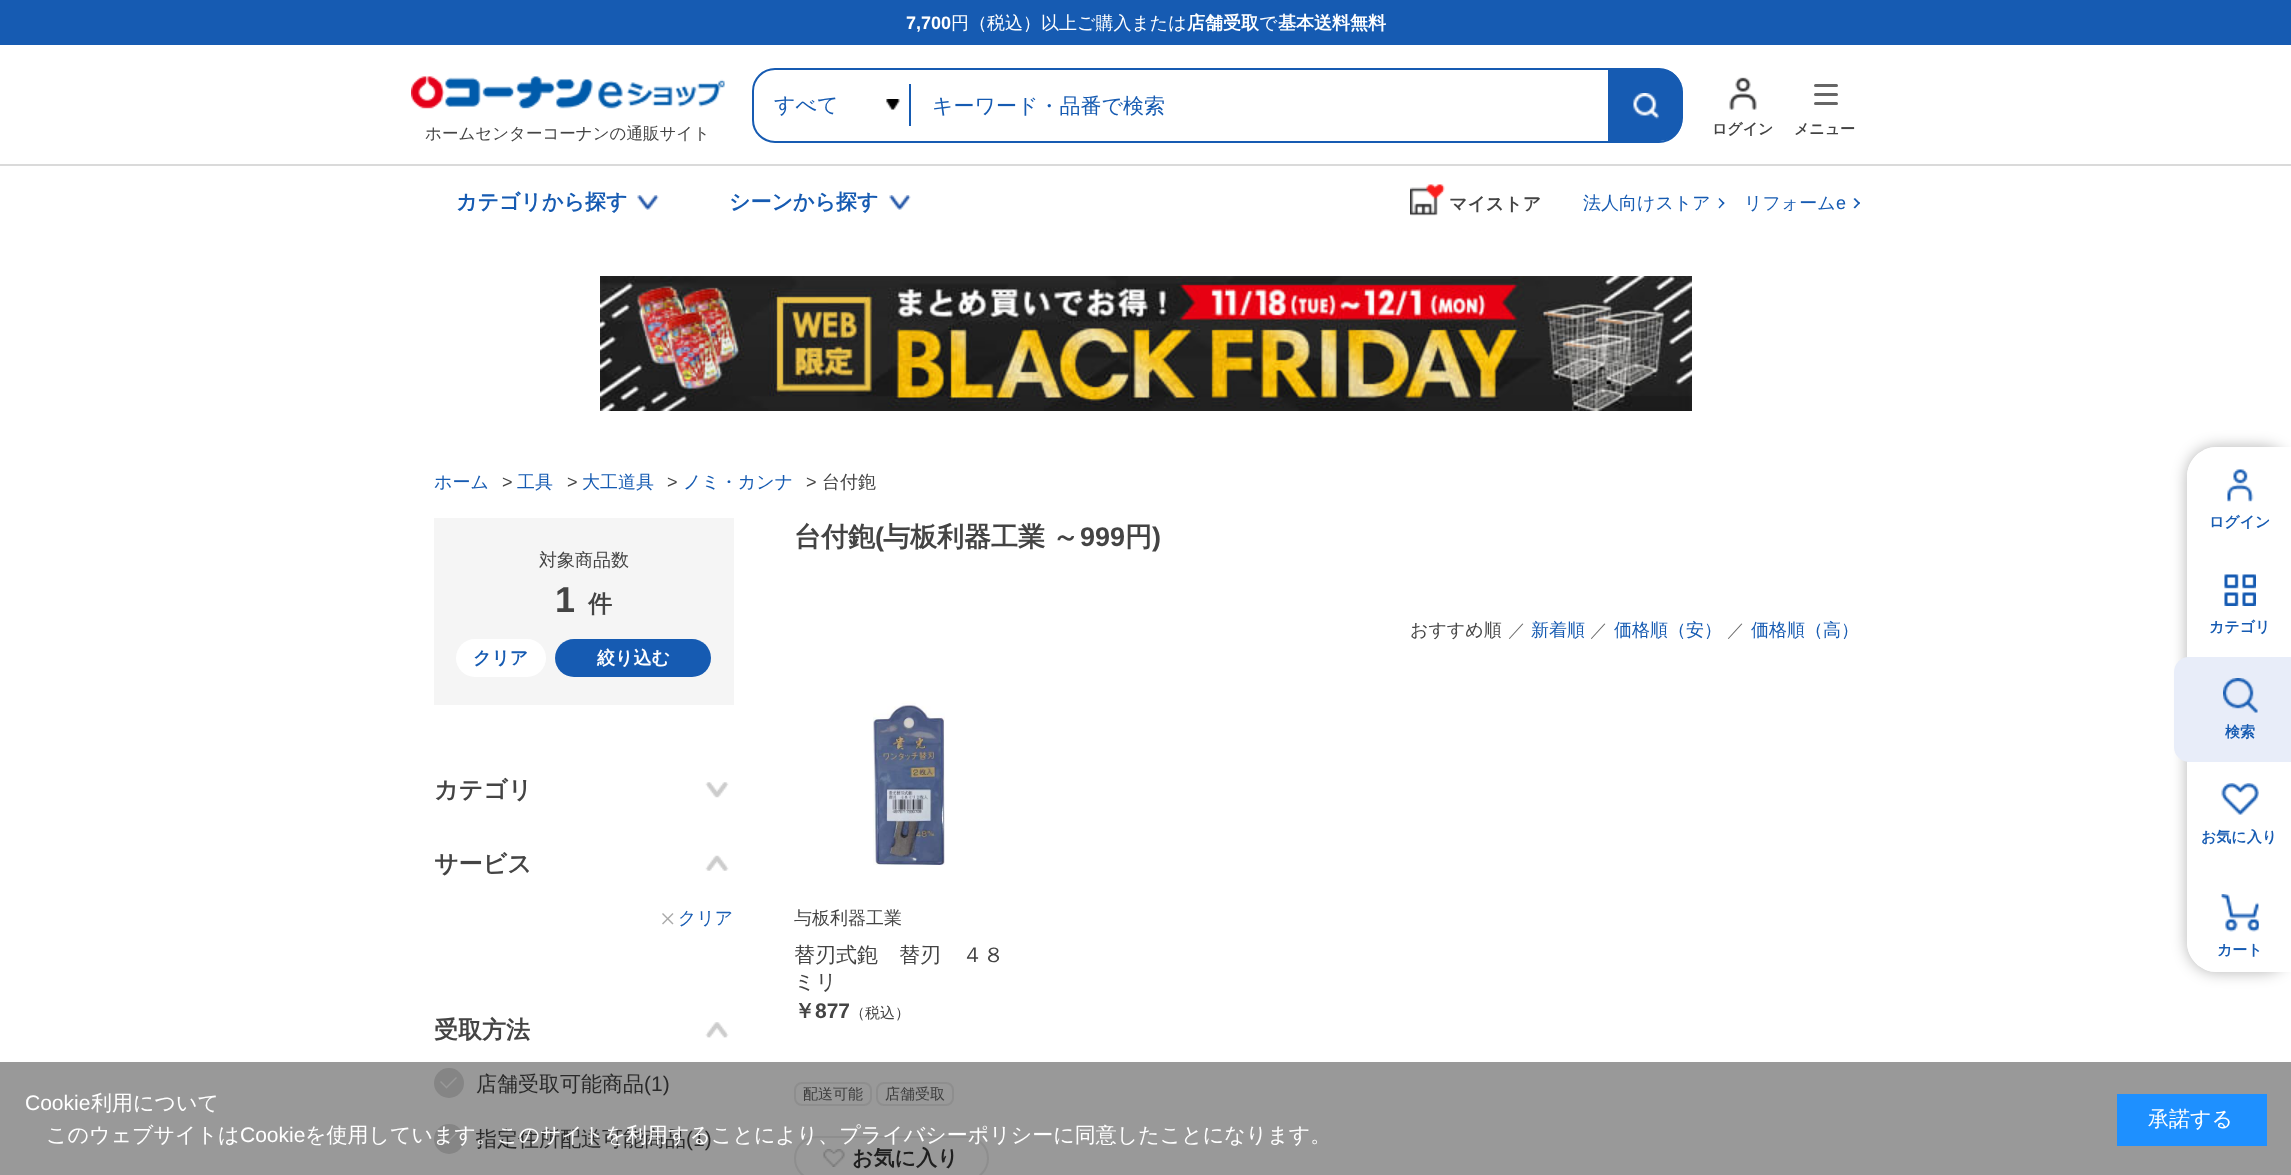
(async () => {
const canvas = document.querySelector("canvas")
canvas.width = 2291
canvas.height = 1175
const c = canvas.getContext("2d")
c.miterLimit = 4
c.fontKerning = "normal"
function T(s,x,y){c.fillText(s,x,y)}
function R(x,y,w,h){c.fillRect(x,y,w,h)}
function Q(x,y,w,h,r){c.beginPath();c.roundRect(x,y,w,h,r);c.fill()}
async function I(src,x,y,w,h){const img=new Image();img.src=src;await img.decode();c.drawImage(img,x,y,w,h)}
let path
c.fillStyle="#fff"
R(0,0,2291,1175)
c.fillStyle="#999"
R(0,1062,2291,113)
c.fillStyle="#165bb2"
R(0,0,2291,45)
c.font="bold 18px Liberation Sans"
c.fillStyle="#fff"
T("7,700",906,29)
c.font="500 18px WenQuanYi Zen Hei"
T("円（税込）以上ご購入または",951,29)
c.font="bold 18px WenQuanYi Zen Hei"
T("店舗受取",1187,29)
c.font="500 18px WenQuanYi Zen Hei"
T("で",1259,29)
c.font="bold 18px WenQuanYi Zen Hei"
T("基本送料無料",1278,29)
c.fillStyle="#dadada"
R(0,164,2291,2)
await I("1.png",886,99,14,11)
c.fillStyle="#165bb2"
c.beginPath()
c.roundRect(1608,69,75,72,[0,23,23,0])
c.fill()
await I("2.png",1633,93,26,26)
c.beginPath()
c.roundRect(753,69,928,73,22)
c.strokeStyle="#165bb2"
c.lineWidth=2
c.stroke()
c.font="500 21px WenQuanYi Zen Hei"
T("すべて",774,112)
R(909,84,2,42)
T("キーワード・品番で検索",932,113)
await I("3.png",411,76,314,33)
c.font="500 16.5px WenQuanYi Zen Hei"
c.fillStyle="#444"
T("ホームセンターコーナンの通販サイト",425,139)
await I("4.png",1729,77,28,33)
c.font="bold 15px WenQuanYi Zen Hei"
T("ログイン",1712,134)
c.fillStyle="#666"
Q(1814,93,24,3,1.5)
Q(1814,84,24,3,1.5)
Q(1814,102,24,3,1.5)
c.fillStyle="#444"
T("メニュー",1794,134)
c.font="bold 21px WenQuanYi Zen Hei"
c.fillStyle="#165bb2"
T("カテゴリから探す",456,209)
await I("5.png",637,195,22,15)
T("シーンから探す",729,209)
await I("6.png",889,195,22,15)
await I("7.png",1410,184,35,32)
c.font="bold 18px WenQuanYi Zen Hei"
c.fillStyle="#444"
T("マイストア",1449,210)
c.font="500 18px WenQuanYi Zen Hei"
c.fillStyle="#165bb2"
T("法人向けストア",1583,209)
path = new Path2D("M1719.5 198l5 5l-1 1.5l-5-5.5z")
c.fill(path)
path = new Path2D("M1723.5 202l1 1l-5 5.5l-1-1z")
c.fill(path)
T("リフォーム",1744,209)
c.font="18px Liberation Sans"
T("e",1836,209)
path = new Path2D("M1855 198l5 5l-1 1.5l-5.5-5.5z")
c.fill(path)
path = new Path2D("M1859 202l1 1l-5 5.5l-1.5-1z")
c.fill(path)
await I("8.png",600,276,1092,135)
c.font="500 18px WenQuanYi Zen Hei"
T("ホーム",434,488)
c.font="18px Liberation Sans"
c.fillStyle="#444"
T(">",502,488)
c.font="500 18px WenQuanYi Zen Hei"
c.fillStyle="#165bb2"
T("工具",517,488)
c.font="18px Liberation Sans"
c.fillStyle="#444"
T(">",567,488)
c.font="500 18px WenQuanYi Zen Hei"
c.fillStyle="#165bb2"
T("大工道具",582,488)
c.font="18px Liberation Sans"
c.fillStyle="#444"
T(">",667,488)
c.font="500 18px WenQuanYi Zen Hei"
c.fillStyle="#165bb2"
T("ノミ・カンナ",683,488)
c.font="18px Liberation Sans"
c.fillStyle="#444"
T(">",806,488)
c.font="500 18px WenQuanYi Zen Hei"
T("台付鉋",822,488)
c.fillStyle="#f5f5f5"
R(434,518,300,187)
c.fillStyle="#444"
T("対象商品数",539,566)
c.font="bold 36px Liberation Sans"
T("1",555,612)
c.font="bold 24px WenQuanYi Zen Hei"
T("件",588,612)
c.fillStyle="#fff"
Q(456,639,90,38,19)
c.font="bold 18px WenQuanYi Zen Hei"
c.fillStyle="#165bb2"
T("クリア",473,664)
Q(555,639,156,38,19)
c.fillStyle="#fff"
T("絞り込む",597,664)
c.font="bold 24px WenQuanYi Zen Hei"
c.fillStyle="#444"
T("カテゴリ",434,798)
await I("9.png",705,782,24,16)
T("サービス",434,872)
await I("10.png",705,855,24,16)
c.fillStyle="#aaa"
path = new Path2D("M662 923.5l10.5-10.5l1 1l-10.5 10.5z")
c.fill(path)
c.font="500 18px WenQuanYi Zen Hei"
c.fillStyle="#165bb2"
T("クリア",678,924)
c.fillStyle="#aaa"
path = new Path2D("M663 913l10.5 10.5l-1 1l-10.5-10.5z")
c.fill(path)
c.font="bold 24px WenQuanYi Zen Hei"
c.fillStyle="#444"
T("受取方法",434,1038)
await I("11.png",705,1022,24,16)
c.fillStyle="#858585"
c.beginPath()
c.arc(449,1083,15,0,7)
c.fill()
c.font="500 21px WenQuanYi Zen Hei"
c.fillStyle="#292929"
T("店舗受取可能商品",476,1091)
c.font="21px Liberation Sans"
T("(1)",644,1091)
c.fillStyle="#999"
path = new Path2D("M445.5 1087.5l10.5-10.5l1 1l-10.5 10.5z")
c.fill(path)
c.fillStyle="#858585"
c.beginPath()
c.arc(449,1139,15,0,7)
c.fill()
c.fillStyle="#999"
path = new Path2D("M440 1082l1-1l6.5 6.5l-1 1zm5.5 61l10.5-10.5l1 1l-10.5 10.5z")
c.fill(path)
c.font="500 21px WenQuanYi Zen Hei"
c.fillStyle="#292929"
T("指定住所配送可能商品",476,1146)
c.font="21px Liberation Sans"
T("(1)",686,1146)
c.fillStyle="#999"
path = new Path2D("M440 1137.5l1-1l6.5 6.5l-1 1z")
c.fill(path)
c.font="bold 27px WenQuanYi Zen Hei"
c.fillStyle="#444"
T("台付鉋",794,546)
c.font="bold 27px Liberation Sans"
T("(",875,546)
c.wordSpacing="-1px"
c.font="bold 27px WenQuanYi Zen Hei"
T("与板利器工業 ～",883,546)
c.wordSpacing="0px"
c.font="bold 27px Liberation Sans"
T("999",1080,546)
c.font="bold 27px WenQuanYi Zen Hei"
T("円",1125,546)
c.font="bold 27px Liberation Sans"
T(")",1152,546)
c.font="500 18px WenQuanYi Zen Hei"
T("おすすめ順",1410,636)
c.fillStyle="#666"
T("／",1508,636)
c.fillStyle="#165bb2"
T("新着順",1531,636)
c.fillStyle="#666"
T("／",1590,636)
c.fillStyle="#165bb2"
T("価格順（安）",1614,636)
c.fillStyle="#666"
T("／",1727,636)
c.fillStyle="#165bb2"
T("価格順（高）",1751,636)
await I("12.png",873,701,72,164)
c.fillStyle="#444"
T("与板利器工業",794,924)
c.font="500 21px WenQuanYi Zen Hei"
T("替刃式鉋　替刃　４８",794,962)
T("ミリ",794,989)
c.font="bold 21px WenQuanYi Zen Hei"
T("￥",794,1018)
c.font="bold 21px Liberation Sans"
T("877",815,1018)
c.font="500 15px WenQuanYi Zen Hei"
T("（税込）",850,1018)
c.beginPath()
c.roundRect(795,1083,76,22,7)
c.strokeStyle="#8e8e8e"
c.stroke()
c.fillStyle="#3d3d3d"
T("配送可能",803,1099)
c.beginPath()
c.roundRect(877,1083,76,22,7)
c.stroke()
T("店舗受取",885,1099)
c.beginPath()
c.roundRect(795,1137,193,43,21.5)
c.stroke()
await I("13.png",823,1149,22,18)
c.font="bold 21px WenQuanYi Zen Hei"
c.fillStyle="#1f1f1f"
T("お気に入り",852,1165)
c.save()
path = new Path2D("M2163 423h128v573h-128zm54 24h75v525h-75c-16.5 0-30-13.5-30-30v-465c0-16.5 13.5-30 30-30z")
c.clip(path,"evenodd")
c.fillStyle="#0000004d"
c.filter="blur(7.5px)"
c.beginPath()
c.roundRect(2187,447,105,525,30)
c.fill()
c.filter="none"
c.restore()
c.fillStyle="#fffffff2"
path = new Path2D("M2217 447h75v525h-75c-16.5 0-30-13.5-30-30v-465c0-16.5 13.5-30 30-30z")
c.fill(path)
await I("14.png",2227,469,27,33)
c.font="bold 15px WenQuanYi Zen Hei"
c.fillStyle="#165bb2"
T("ログイン",2209,527)
await I("15.png",2224,574,32,32)
T("カテゴリ",2209,632)
c.fillStyle="#e8edf9"
R(2187,657,104,105)
c.beginPath()
c.roundRect(2174,657,16,105,[15,0,0,15])
c.fill()
await I("16.png",2223,678,35,35)
c.fillStyle="#165bb2"
T("検索",2225,737)
await I("17.png",2221,783,38,32)
T("お気に入り",2201,842)
await I("18.png",2221,894,38,38)
T("カート",2217,955)
c.font="21px Liberation Sans"
c.fillStyle="#fff"
T("Cookie",25,1110)
c.font="500 21px WenQuanYi Zen Hei"
T("利用について",91,1110)
T("このウェブサイトは",46,1142)
c.font="21px Liberation Sans"
T("Cookie",240,1142)
c.font="500 21px WenQuanYi Zen Hei"
T("を使用しています。このサイトを利用することにより、プライバシーポリシーに同意したことになります。",305,1142)
c.fillStyle="#1e90ff"
R(2117,1094,150,52)
c.fillStyle="#fff"
T("承諾する",2148,1126)
})()
